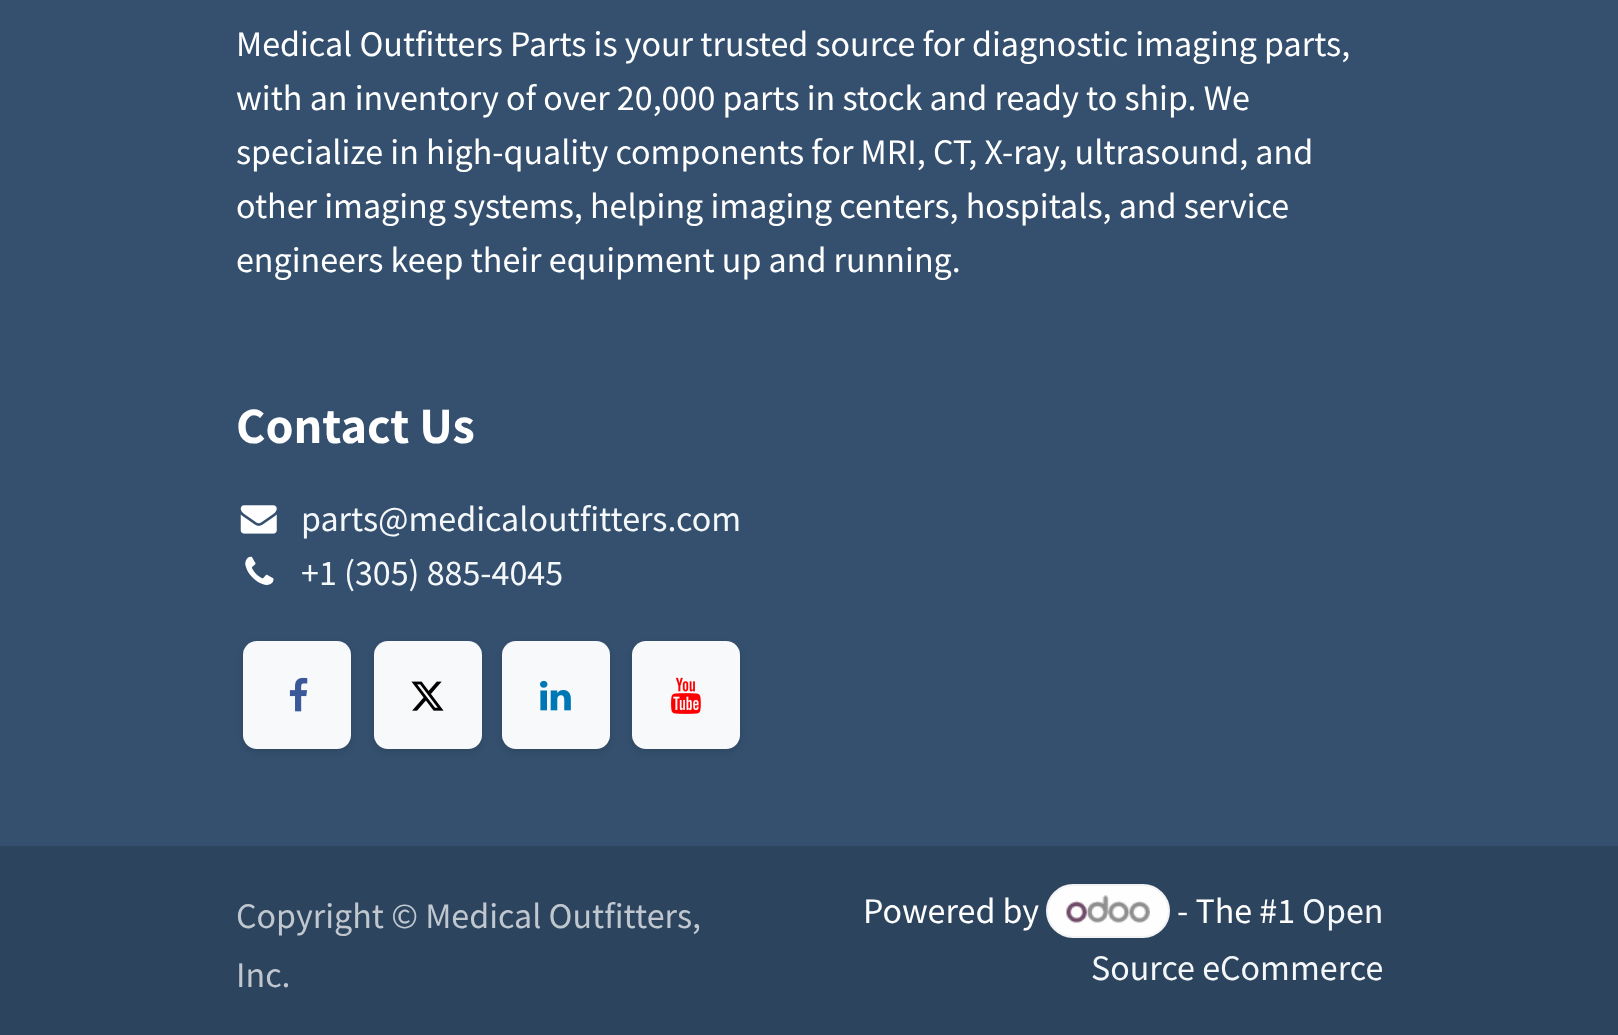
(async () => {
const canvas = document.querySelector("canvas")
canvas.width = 1618
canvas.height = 1035
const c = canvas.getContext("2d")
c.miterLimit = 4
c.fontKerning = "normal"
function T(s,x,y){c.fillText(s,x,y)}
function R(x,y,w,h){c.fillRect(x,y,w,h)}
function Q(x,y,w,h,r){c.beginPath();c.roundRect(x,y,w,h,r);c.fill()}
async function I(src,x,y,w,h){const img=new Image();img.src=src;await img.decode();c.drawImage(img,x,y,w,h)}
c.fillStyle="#34506e"
R(0,0,1618,1035)
c.font="36px Source Sans Pro"
c.fillStyle="#fff"
T("Medical Outfitters Parts is your trusted source for diagnostic imaging parts,",236,56)
T("with an inventory of over 20,000 parts in stock and ready to ship. We",236,110)
T("specialize in high-quality components for MRI, CT, X-ray, ultrasound, and",236,164)
T("other imaging systems, helping imaging centers, hospitals, and service",236,218)
T("engineers keep their equipment up and running.",236,272)
c.font="bold 50.75px Assistant"
T("Contact Us",236,443)
await I("1.png",240,505,37,29)
c.font="36px Source Sans Pro"
c.fillStyle="#f5f8fa"
T("parts@medicaloutfitters.com",301,531)
await I("2.png",245,556,29,29)
T("+1 (305) 885-4045",301,585)
c.fillStyle="#0000001a"
c.filter="blur(3.5px)"
c.beginPath()
c.roundRect(243,644,108,108,14)
c.fill()
c.filter="none"
c.fillStyle="#f8f9fa"
Q(243,641,108,108,14)
await I("3.png",289,677,19,35)
c.fillStyle="#0000001a"
c.filter="blur(3.5px)"
c.beginPath()
c.roundRect(374,644,108,108,14)
c.fill()
c.filter="none"
c.fillStyle="#f8f9fa"
Q(374,641,108,108,14)
await I("4.png",411,681,33,30)
c.fillStyle="#0000001a"
c.filter="blur(3.5px)"
c.beginPath()
c.roundRect(502,644,108,108,14)
c.fill()
c.filter="none"
c.fillStyle="#f8f9fa"
Q(502,641,108,108,14)
await I("5.png",540,680,31,31)
c.fillStyle="#0000001a"
c.filter="blur(3.5px)"
c.beginPath()
c.roundRect(632,644,108,108,14)
c.fill()
c.filter="none"
c.fillStyle="#f8f9fa"
Q(632,641,108,108,14)
await I("6.png",671,677,30,37)
c.fillStyle="#2c445e"
R(0,846,1618,189)
c.fillStyle="#c0c7cf"
T("Copyright © Medical Outfitters,",236,928)
T("Inc.",236,987)
c.fillStyle="#fff"
T("Powered by",863,923)
c.fillStyle="#fefefe"
c.beginPath()
c.roundRect(1047,885,122,52,26)
c.fill()
c.strokeStyle="#f3f2f2"
c.lineWidth=2
c.stroke()
await I("7.png",1066,895,84,28)
c.fillStyle="#fff"
T("- The #1",1177,923)
c.fillStyle="#f5f8fa"
T("Open",1302,923)
T("Source eCommerce",1091,980)
})()
